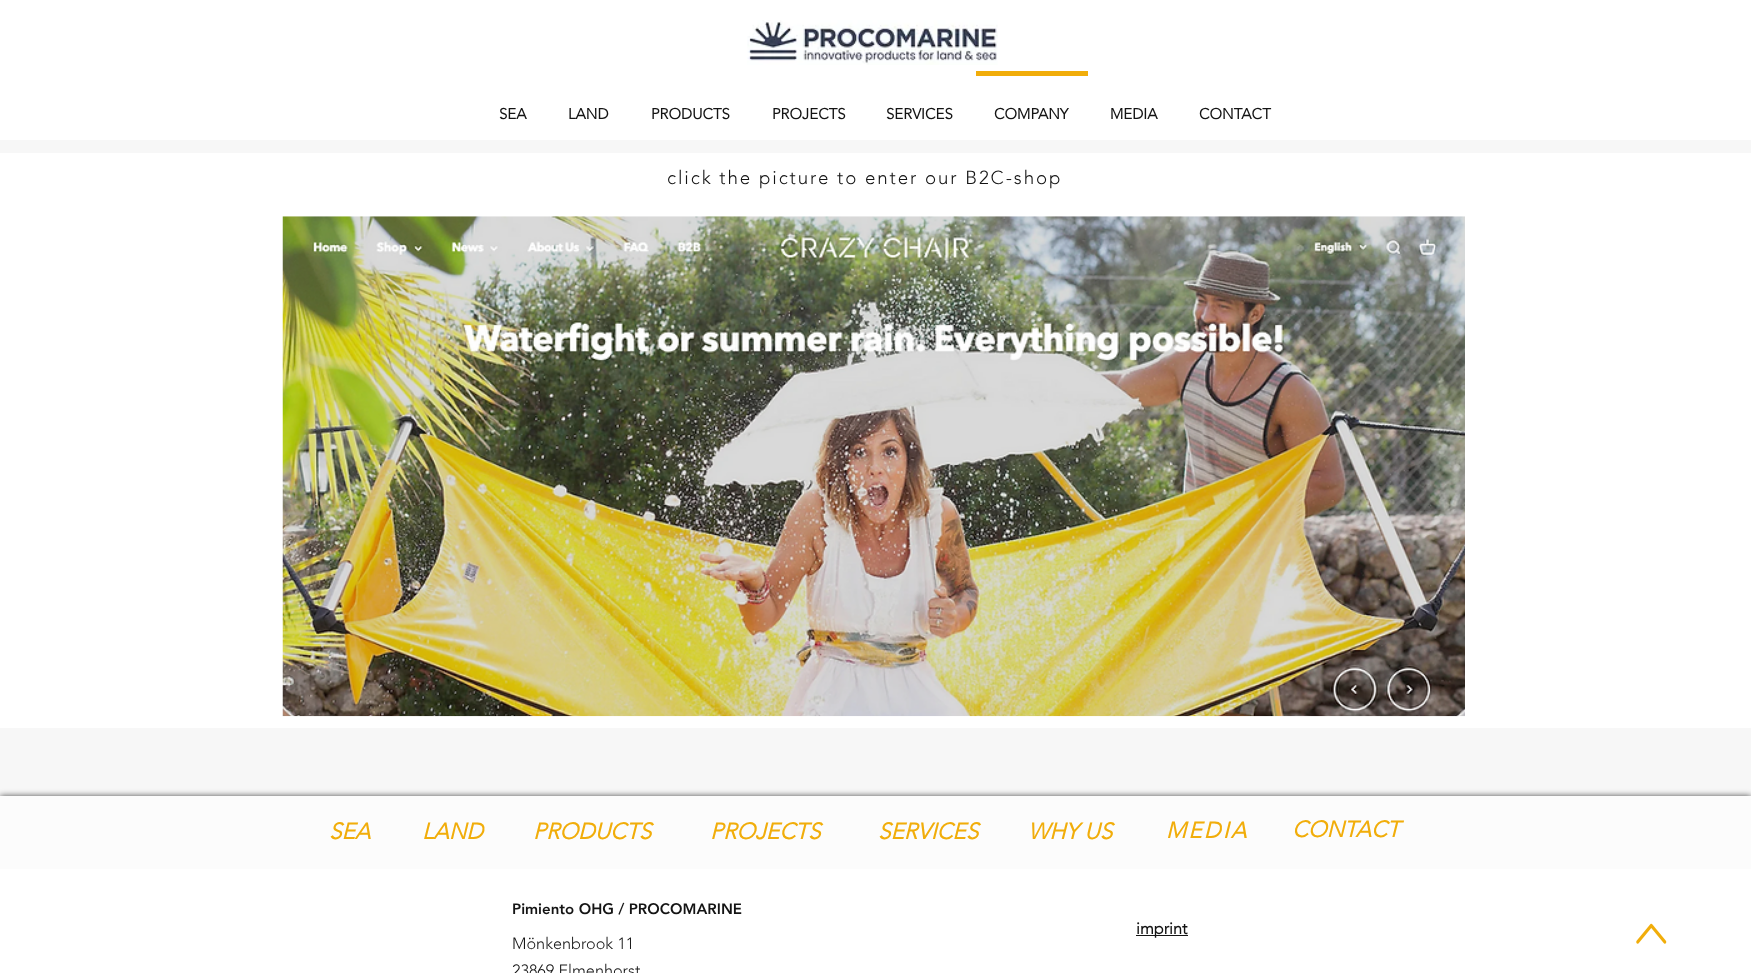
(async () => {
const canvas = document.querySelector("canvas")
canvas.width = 1751
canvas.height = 973
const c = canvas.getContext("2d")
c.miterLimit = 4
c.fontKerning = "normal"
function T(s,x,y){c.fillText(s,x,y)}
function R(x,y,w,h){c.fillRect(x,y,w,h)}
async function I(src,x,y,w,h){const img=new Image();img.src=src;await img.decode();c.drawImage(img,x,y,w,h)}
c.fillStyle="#f7f7f7"
R(0,0,1751,973)
c.fillStyle="#fff"
R(0,0,1751,140)
await I("1.png",747,20,251,45)
c.font="bold 15px 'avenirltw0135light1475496'"
c.fillStyle="#141414"
T("SEA",499,119)
T("LAND",568,119)
T("PRODUCTS",651,119)
T("PROJECTS",772,119)
T("SERVICES",886,119)
c.fillStyle="#f1ad0a"
R(976,71,112,5)
c.fillStyle="#141414"
T("COMPANY",994,119)
T("MEDIA",1110,119)
T("CONTACT",1199,119)
c.fillStyle="#fff"
R(0,153,1751,575)
c.letterSpacing="1.9px"
c.font="300 18.75px 'avenirltw0135light1475496'"
c.fillStyle="#141414"
T("click the picture to enter our B2C-shop",667,184)
await I("2.png",282,216,1183,501)
c.fillStyle="#000000b3"
c.filter="blur(3px)"
c.beginPath()
c.rect(0,796,1751,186)
c.fill()
c.filter="none"
c.fillStyle="#fff"
R(0,869,1751,104)
c.fillStyle="#fcfcfc"
R(0,796,1751,73)
c.letterSpacing="0px"
c.font="italic bold 22.5px 'avenirltw0135light1475496'"
c.fillStyle="#f1ad0a"
T("SEA",329,839)
T("LAND",422,839)
T("PRODUCTS",533,839)
T("PROJECTS",710,839)
T("SERVICES",878,839)
T("WHY US",1028,839)
c.letterSpacing="2.25px"
T("MEDIA",1166,838)
c.letterSpacing="0px"
T("CONTACT",1292,837)
c.font="900 15px 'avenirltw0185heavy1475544'"
c.fillStyle="#141414"
T("Pimiento OHG / PROCOMARINE",512,914)
c.font="300 16.25px 'avenirltw0135light1475496'"
T("Mönkenbrook 11",512,949)
T("23869 Elmenhorst",512,976)
R(1136,935,52,1)
c.font="bold 16.25px 'avenirltw0135light1475496'"
T("imprint",1136,934)
await I("3.png",1636,923,31,21)
})()
